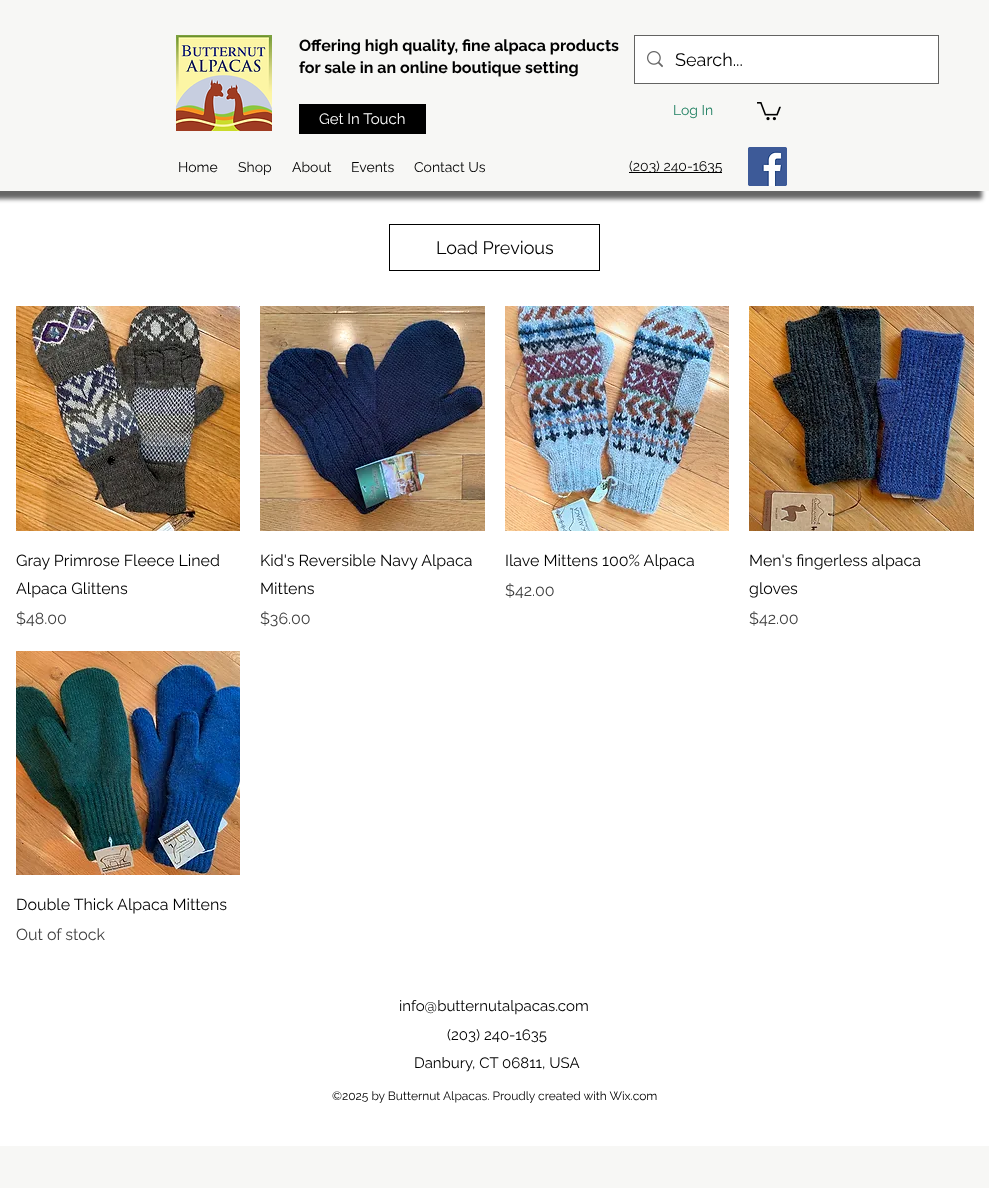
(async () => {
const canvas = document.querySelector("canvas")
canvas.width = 989
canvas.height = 1188
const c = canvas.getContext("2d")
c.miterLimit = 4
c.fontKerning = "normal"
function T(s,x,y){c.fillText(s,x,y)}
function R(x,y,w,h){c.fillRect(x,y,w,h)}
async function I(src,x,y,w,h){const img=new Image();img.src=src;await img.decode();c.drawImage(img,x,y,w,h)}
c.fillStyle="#fff"
R(0,0,989,1188)
c.fillStyle="#00000099"
c.filter="blur(2px)"
c.beginPath()
c.rect(-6,8,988,191)
c.fill()
c.filter="none"
c.fillStyle="#f7f7f5"
R(0,0,989,191)
await I("1.png",176,35,96,96)
c.font="bold 16px Raleway"
c.fillStyle="#000"
T("Offering high quality, fine alpaca products",299,51)
T("for sale in an online boutique setting",299,73)
R(299,104,127,30)
c.font="15px Raleway"
c.fillStyle="#fff"
T("Get In Touch",319,124)
c.font="14px Raleway"
c.fillStyle="#228163"
T("Log In",673,115)
await I("2.png",757,102,24,19)
c.strokeStyle="#636362"
c.strokeRect(634.5,35.5,304,48)
c.fillStyle="#fff"
R(635,36,303,47)
await I("3.png",647,51,16,17)
c.font="18px Raleway"
c.fillStyle="#000"
T("Search...",675,66)
c.font="14px Raleway"
T("Home",178,172)
c.fillStyle="#080808"
T("Shop",238,172)
c.fillStyle="#000"
T("About",292,172)
T("Events",351,172)
T("Contact Us",414,172)
R(629,172,93,1)
T("(203) 240-1635",629,171)
await I("4.png",748,147,39,39)
c.strokeStyle="#000"
c.strokeRect(389.5,224.5,210,46)
c.font="18px Raleway"
T("Load Previous",436,254)
await I("5.png",16,306,224,225)
c.font="16px Raleway"
T("Gray Primrose Fleece Lined",16,566)
T("Alpaca Glittens",16,594)
c.fillStyle="#404040"
T("$48.00",16,624)
await I("6.png",260,306,225,225)
c.fillStyle="#000"
T("Kid's Reversible Navy Alpaca",260,566)
T("Mittens",260,594)
c.fillStyle="#404040"
T("$36.00",260,624)
await I("7.png",505,306,224,225)
c.fillStyle="#000"
T("Ilave Mittens 100% Alpaca",505,566)
c.fillStyle="#404040"
T("$42.00",505,596)
await I("8.png",749,306,225,225)
c.fillStyle="#000"
T("Men's fingerless alpaca",749,566)
T("gloves",749,594)
c.fillStyle="#404040"
T("$42.00",749,624)
await I("9.png",16,651,224,224)
c.fillStyle="#000"
T("Double Thick Alpaca Mittens",16,910)
c.fillStyle="#404040"
T("Out of stock",16,940)
c.font="15px Raleway"
c.fillStyle="#000"
T("info@butternutalpacas.com",399,1011)
T("(203) 240-1635",447,1040)
T("Danbury, CT 06811, USA",414,1068)
c.font="12px Raleway"
T("©2025 by Butternut Alpacas. Proudly created with Wix.com",332,1100)
c.fillStyle="#f7f7f5"
R(0,1146,989,42)
})()
